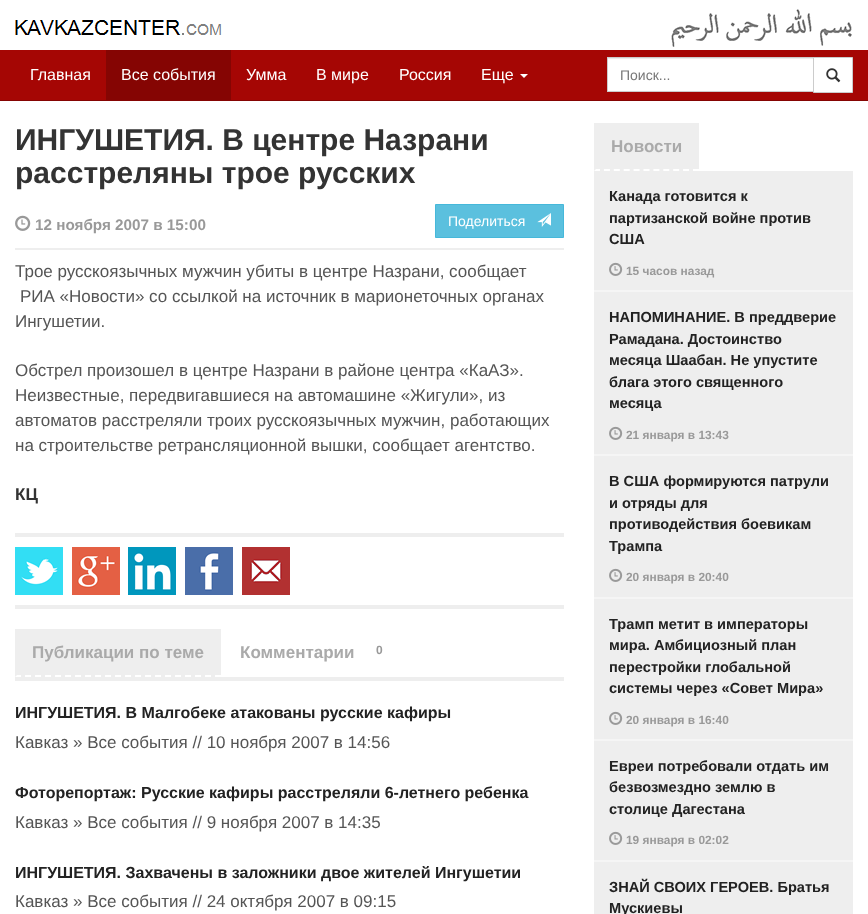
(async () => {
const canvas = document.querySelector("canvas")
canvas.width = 868
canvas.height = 914
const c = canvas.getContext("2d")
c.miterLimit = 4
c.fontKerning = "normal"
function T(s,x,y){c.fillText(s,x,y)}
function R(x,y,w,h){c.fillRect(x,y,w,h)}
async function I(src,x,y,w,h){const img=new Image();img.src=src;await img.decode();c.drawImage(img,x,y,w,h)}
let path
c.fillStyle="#fff"
R(0,0,868,914)
await I("1.png",15,20,207,15)
await I("2.png",671,9,181,38)
c.fillStyle="#a50604"
R(0,50,868,50)
c.fillStyle="#850503"
R(0,100,868,1)
c.font="16px Liberation Sans"
c.fillStyle="#fff"
T("Главная",30,80)
c.fillStyle="#850503"
R(106,50,125,50)
c.fillStyle="#fff"
T("Все события",121,80)
T("Умма",246,80)
T("В мире",316,80)
T("Россия",399,80)
T("Еще",481,80)
path = new Path2D("M520 74h8l-4 4z")
c.fill(path)
R(608,59,205,32)
c.fillStyle="#ececec"
R(608,58,205,1)
c.fillStyle="#fff"
c.beginPath()
c.rect(813.5,57.5,39,35)
c.fill()
c.strokeStyle="#ccc"
c.stroke()
c.strokeRect(607.5,57.5,206,34)
c.font="14px Liberation Sans"
c.fillStyle="#777"
T("Поиск...",620,80)
await I("3.png",826,68,15,15)
c.font="bold 30px Liberation Sans"
c.fillStyle="#333"
T("ИНГУШЕТИЯ. В центре Назрани",15,150)
T("расстреляны трое русских",15,183)
await I("4.png",15,215,16,16)
c.font="bold 15.25px Liberation Sans"
c.fillStyle="#999"
T("12 ноября 2007 в 15:00",35,230)
c.fillStyle="#5bc0de"
c.beginPath()
c.rect(435.5,204.5,128,33)
c.fill()
c.strokeStyle="#46b8da"
c.stroke()
c.font="14px Liberation Sans"
c.fillStyle="#fff"
T("Поделиться",448,226)
await I("5.png",537,213,14,14)
c.fillStyle="#eee"
R(15,248,549,2)
c.font="17px Liberation Sans"
c.fillStyle="#555"
T("Трое русскоязычных мужчин убиты в центре Назрани, сообщает",15,277)
T("РИА «Новости» со ссылкой на источник в марионеточных органах",20,302)
T("Ингушетии.",15,327)
T("Обстрел произошел в центре Назрани в районе центра «КаАЗ».",15,376)
T("Неизвестные, передвигавшиеся на автомашине «Жигули», из",15,401)
T("автоматов расстреляли троих русскоязычных мужчин, работающих",15,426)
T("на строительстве ретрансляционной вышки, сообщает агентство.",15,451)
c.font="bold 17px Liberation Sans"
c.fillStyle="#333"
T("КЦ",15,500)
c.fillStyle="#eee"
R(15,533,549,4)
await I("6.png",15,547,48,48)
await I("7.png",72,547,48,48)
await I("8.png",128,547,48,48)
await I("9.png",185,547,48,48)
await I("10.png",242,547,48,48)
R(15,605,549,4)
R(15,629,206,48)
path = new Path2D("M15 676h206")
c.strokeStyle="#fff"
c.lineWidth=2
c.setLineDash([6,4])
c.stroke(path)
path = new Path2D("M15 677v-48l2 2v44z")
c.fill(path)
c.fillStyle="#aaa"
T("Публикации по теме",32,658)
T("Комментарии",240,658)
c.font="bold 12px Liberation Sans"
c.fillStyle="#999"
T("0",376,654)
c.fillStyle="#eee"
R(15,677,549,4)
c.font="bold 16px Liberation Sans"
c.fillStyle="#222"
T("ИНГУШЕТИЯ. В Малгобеке атакованы русские кафиры",15,718)
c.font="17px Liberation Sans"
c.fillStyle="#555"
T("Кавказ » Все события // 10 ноября 2007 в 14:56",15,748)
c.font="bold 16px Liberation Sans"
c.fillStyle="#222"
T("Фоторепортаж: Русские кафиры расстреляли 6-летнего ребенка",15,798)
c.font="17px Liberation Sans"
c.fillStyle="#555"
T("Кавказ » Все события // 9 ноября 2007 в 14:35",15,828)
c.font="bold 16px Liberation Sans"
c.fillStyle="#222"
T("ИНГУШЕТИЯ. Захвачены в заложники двое жителей Ингушетии",15,878)
c.font="17px Liberation Sans"
c.fillStyle="#555"
T("Кавказ » Все события // 24 октября 2007 в 09:15",15,907)
c.fillStyle="#eee"
R(594,123,105,48)
path = new Path2D("M594 170h105")
c.setLineDash([6,3.9])
c.stroke(path)
path = new Path2D("M594 171v-48l2 2v44z")
c.fill(path)
c.font="bold 17px Liberation Sans"
c.fillStyle="#aaa"
T("Новости",611,152)
c.fillStyle="#eee"
R(594,171,259,119)
c.fillStyle="#f5f5f5"
R(594,290,259,2)
c.font="bold 14.6px Liberation Sans"
c.fillStyle="#222"
T("Канада готовится к",609,201)
T("партизанской войне против",609,223)
T("США",609,244)
await I("11.png",609,262,14,14)
c.font="bold 11.9px Liberation Sans"
c.fillStyle="#999"
T("15 часов назад",626,275)
c.fillStyle="#eee"
R(594,292,259,162)
c.fillStyle="#f5f5f5"
R(594,454,259,2)
c.font="bold 14.6px Liberation Sans"
c.fillStyle="#222"
T("НАПОМИНАНИЕ. В преддверие",609,322)
T("Рамадана. Достоинство",609,344)
T("месяца Шаабан. Не упустите",609,365)
T("блага этого священного",609,387)
T("месяца",609,408)
await I("11.png",609,426,14,14)
c.font="bold 11.9px Liberation Sans"
c.fillStyle="#999"
T("21 января в 13:43",626,439)
c.fillStyle="#eee"
R(594,456,259,141)
c.fillStyle="#f5f5f5"
R(594,597,259,2)
c.font="bold 14.6px Liberation Sans"
c.fillStyle="#222"
T("В США формируются патрули",609,486)
T("и отряды для",609,508)
T("противодействия боевикам",609,529)
T("Трампа",609,551)
await I("11.png",609,568,14,14)
c.font="bold 11.9px Liberation Sans"
c.fillStyle="#999"
T("20 января в 20:40",626,581)
c.fillStyle="#eee"
R(594,599,259,140)
c.fillStyle="#f5f5f5"
R(594,739,259,2)
c.font="bold 14.6px Liberation Sans"
c.fillStyle="#222"
T("Трамп метит в императоры",609,629)
T("мира. Амбициозный план",609,650)
T("перестройки глобальной",609,672)
T("системы через «Совет Мира»",609,693)
await I("11.png",609,711,14,14)
c.font="bold 11.9px Liberation Sans"
c.fillStyle="#999"
T("20 января в 16:40",626,724)
c.fillStyle="#eee"
R(594,741,259,119)
c.fillStyle="#f5f5f5"
R(594,860,259,2)
c.font="bold 14.6px Liberation Sans"
c.fillStyle="#222"
T("Евреи потребовали отдать им",609,771)
T("безвозмездно землю в",609,792)
T("столице Дагестана",609,814)
await I("11.png",609,831,14,14)
c.font="bold 11.9px Liberation Sans"
c.fillStyle="#999"
T("19 января в 02:02",626,844)
c.fillStyle="#eee"
R(594,862,259,52)
c.font="bold 14.6px Liberation Sans"
c.fillStyle="#222"
T("ЗНАЙ СВОИХ ГЕРОЕВ. Братья",609,892)
T("Мускиевы",609,913)
})()
